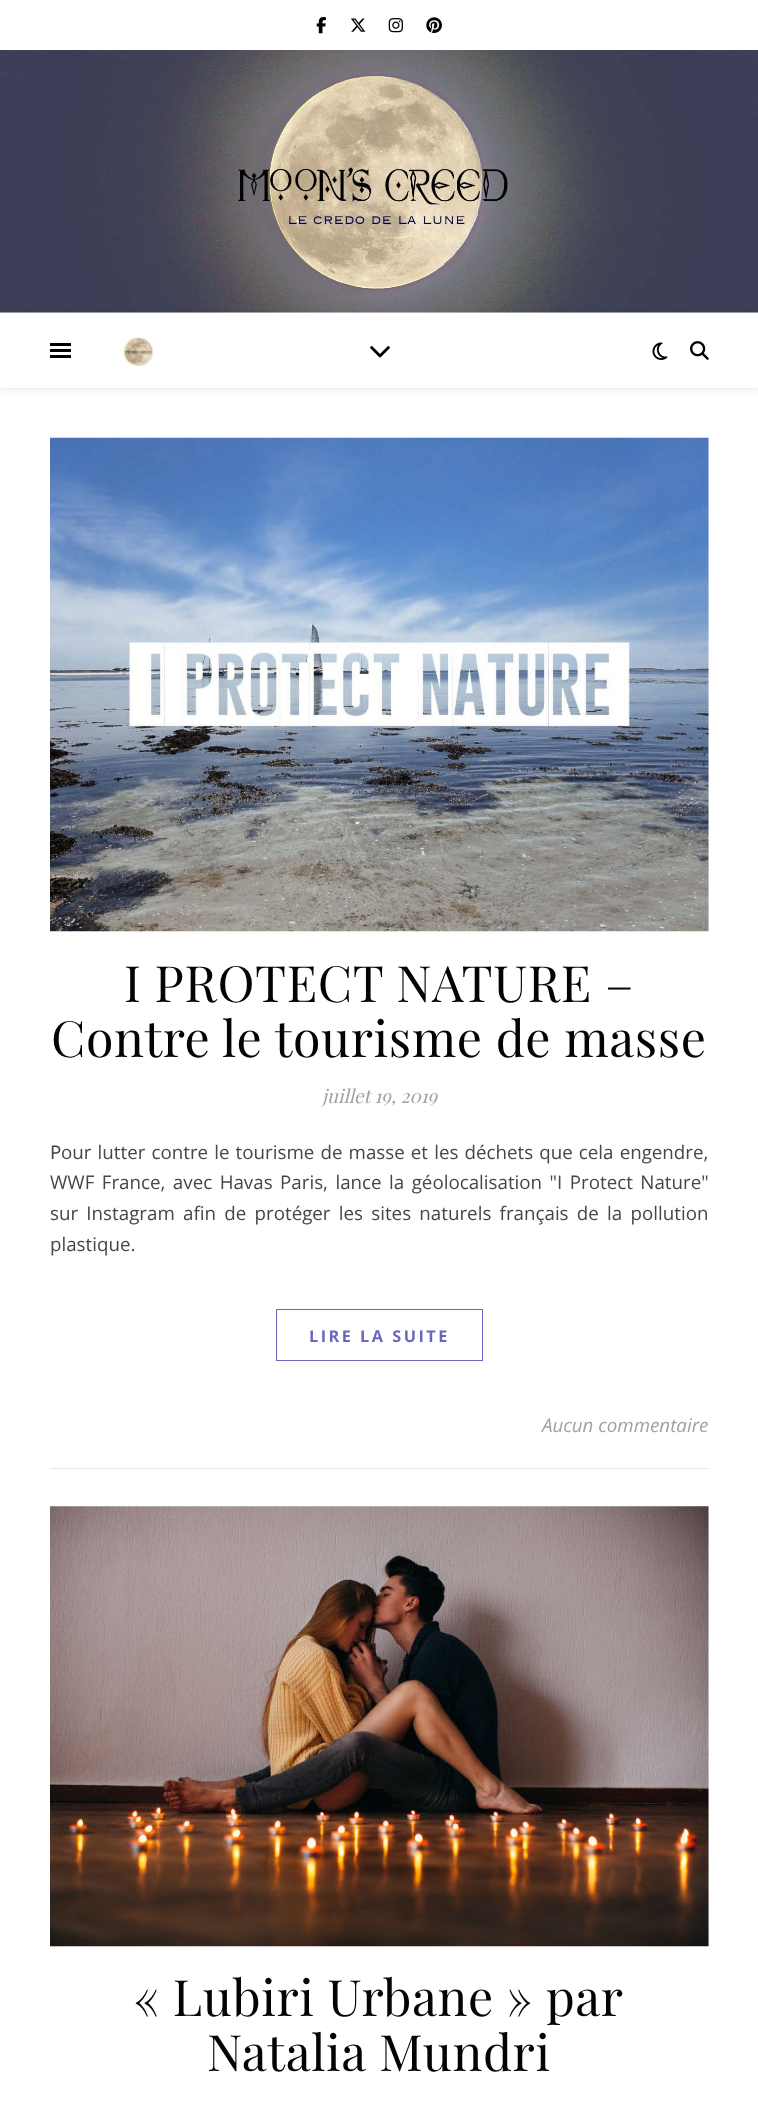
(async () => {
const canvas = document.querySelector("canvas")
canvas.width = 758
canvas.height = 2108
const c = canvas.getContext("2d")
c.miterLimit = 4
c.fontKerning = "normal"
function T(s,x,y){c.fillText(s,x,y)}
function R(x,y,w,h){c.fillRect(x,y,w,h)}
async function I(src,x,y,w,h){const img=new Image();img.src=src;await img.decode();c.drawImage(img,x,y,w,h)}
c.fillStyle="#fff"
R(0,0,758,2108)
await I("1.png",316,17,10,17)
await I("2.png",351,18,15,14)
await I("3.png",388,18,15,15)
await I("4.png",426,17,16,16)
await I("5.png",0,50,758,263)
c.fillStyle="#0000001a"
c.filter="blur(3px)"
c.beginPath()
c.rect(0,314,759,75)
c.fill()
c.filter="none"
c.fillStyle="#fff"
R(0,313,758,75)
c.fillStyle="#000"
R(50,343,21,3)
R(50,349,21,3)
R(50,355,21,3)
await I("6.png",123,337,31,30)
await I("7.png",370,346,20,12)
await I("8.png",652,342,16,18)
await I("9.png",690,341,19,19)
await I("10.png",50,437,659,495)
c.letterSpacing="0.6px"
c.font="50px Playfair Display"
c.fillStyle="#030303"
T("I PROTECT NATURE –",124,1002)
T("Contre le tourisme de masse",51,1057)
c.letterSpacing="0px"
c.font="italic 18.75px Playfair Display"
c.fillStyle="#a1a1a1"
T("juillet 19, 2019",322,1103)
c.font="18.75px Noto Sans"
c.fillStyle="#464646"
T("P",50,1159)
c.wordSpacing="1.25px"
c.font="18.75px Open Sans"
T("our lutter contre le tourisme de masse et les déchets que cela engendre,",61,1159)
c.wordSpacing="2.6px"
T("WWF France, avec Havas Paris, lance la géolocalisation \"I Protect Nature\"",50,1189)
c.wordSpacing="3.4px"
T("sur Instagram afin de protéger les sites naturels français de la pollution",50,1220)
c.wordSpacing="0px"
T("plastique.",50,1251)
c.strokeStyle="#6a67bf"
c.strokeRect(276.5,1309.5,206,51)
c.letterSpacing="2.5px"
c.font="bold 16.25px Open Sans"
c.fillStyle="#6a67bf"
T("LIRE LA SUITE",309,1342)
c.fillStyle="#e8e8e8"
R(50,1468,659,1)
c.letterSpacing="0px"
c.font="italic 18.75px Open Sans"
c.fillStyle="#a1a1a1"
T("Aucun commentaire",542,1432)
await I("11.png",50,1506,659,441)
c.letterSpacing="0.6px"
c.font="50px Playfair Display"
c.fillStyle="#030303"
T("« Lubiri Urbane » par",134,2016)
T("Natalia Mundri",207,2071)
})()
